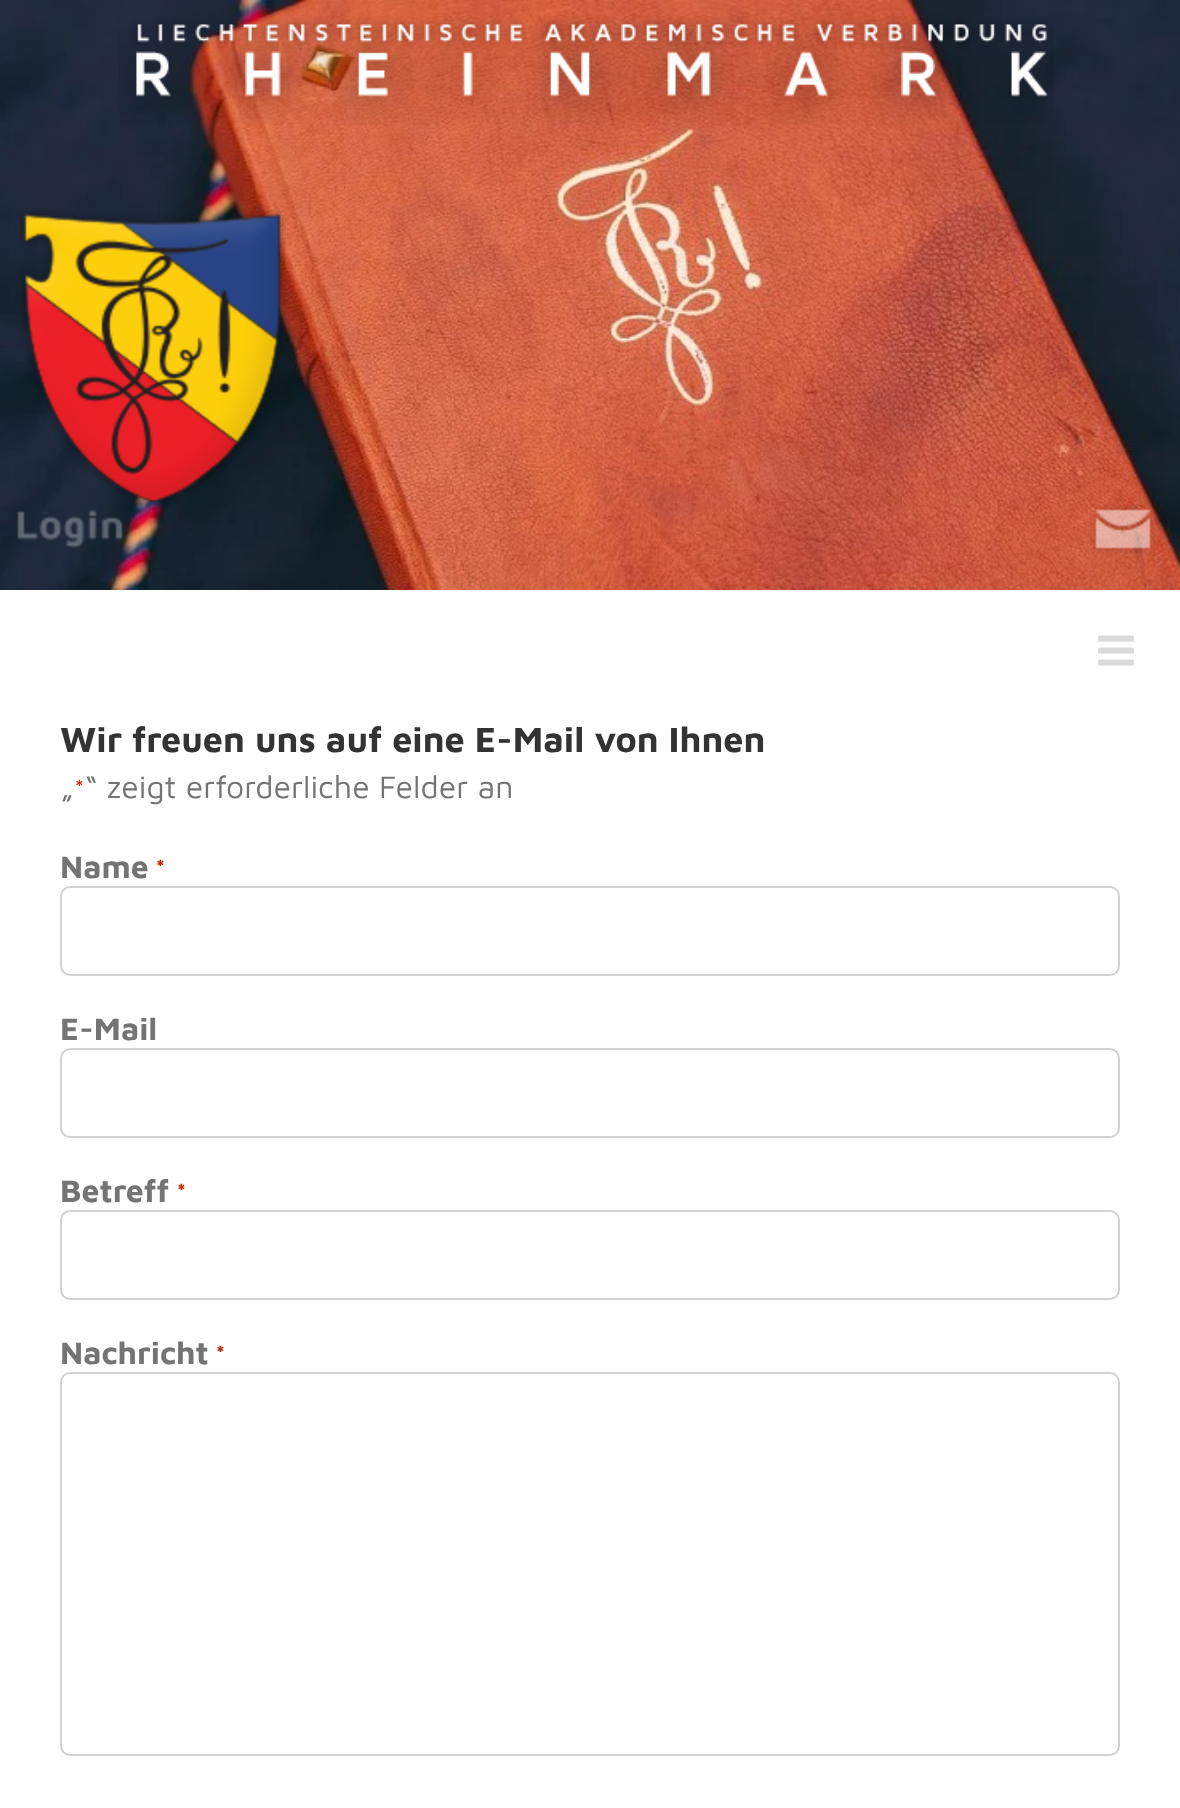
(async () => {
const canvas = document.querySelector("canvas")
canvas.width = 1180
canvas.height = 1808
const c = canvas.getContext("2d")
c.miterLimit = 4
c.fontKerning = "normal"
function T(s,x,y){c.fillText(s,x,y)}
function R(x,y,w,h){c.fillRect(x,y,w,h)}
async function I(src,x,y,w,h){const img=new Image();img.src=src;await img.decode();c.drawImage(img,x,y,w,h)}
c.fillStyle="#fff"
R(0,0,1180,1808)
await I("1.png",0,0,1180,590)
await I("2.png",118,16,936,109)
await I("3.png",17,509,106,39)
await I("4.png",1090,504,66,50)
await I("5.png",20,210,266,299)
await I("6.png",1098,635,36,31)
c.font="bold 36px Maven Pro"
c.fillStyle="#333"
T("Wir freuen uns auf eine E-Mail von Ihnen",60,752)
c.font="26px Maven Pro"
c.fillStyle="#c02b0a"
T("*",74,798)
c.font="32px Maven Pro"
c.fillStyle="#747474"
T("“ zeigt erforderliche Felder an",85,798)
T("„",60,798)
c.font="bold 32px Maven Pro"
T("Name",60,878)
c.font="bold 26px Maven Pro"
c.fillStyle="#c02b0a"
T("*",155,878)
c.beginPath()
c.roundRect(61,887,1058,88,9)
c.strokeStyle="#d2d2d2"
c.lineWidth=2
c.stroke()
c.font="bold 32px Maven Pro"
c.fillStyle="#747474"
T("E-Mail",60,1040)
c.beginPath()
c.roundRect(61,1049,1058,88,9)
c.stroke()
T("Betreff",60,1202)
c.font="bold 26px Maven Pro"
c.fillStyle="#c02b0a"
T("*",176,1202)
c.beginPath()
c.roundRect(61,1211,1058,88,9)
c.stroke()
c.font="bold 32px Maven Pro"
c.fillStyle="#747474"
T("Nachricht",60,1364)
c.font="bold 26px Maven Pro"
c.fillStyle="#c02b0a"
T("*",215,1364)
c.beginPath()
c.roundRect(61,1373,1058,382,9)
c.stroke()
})()
